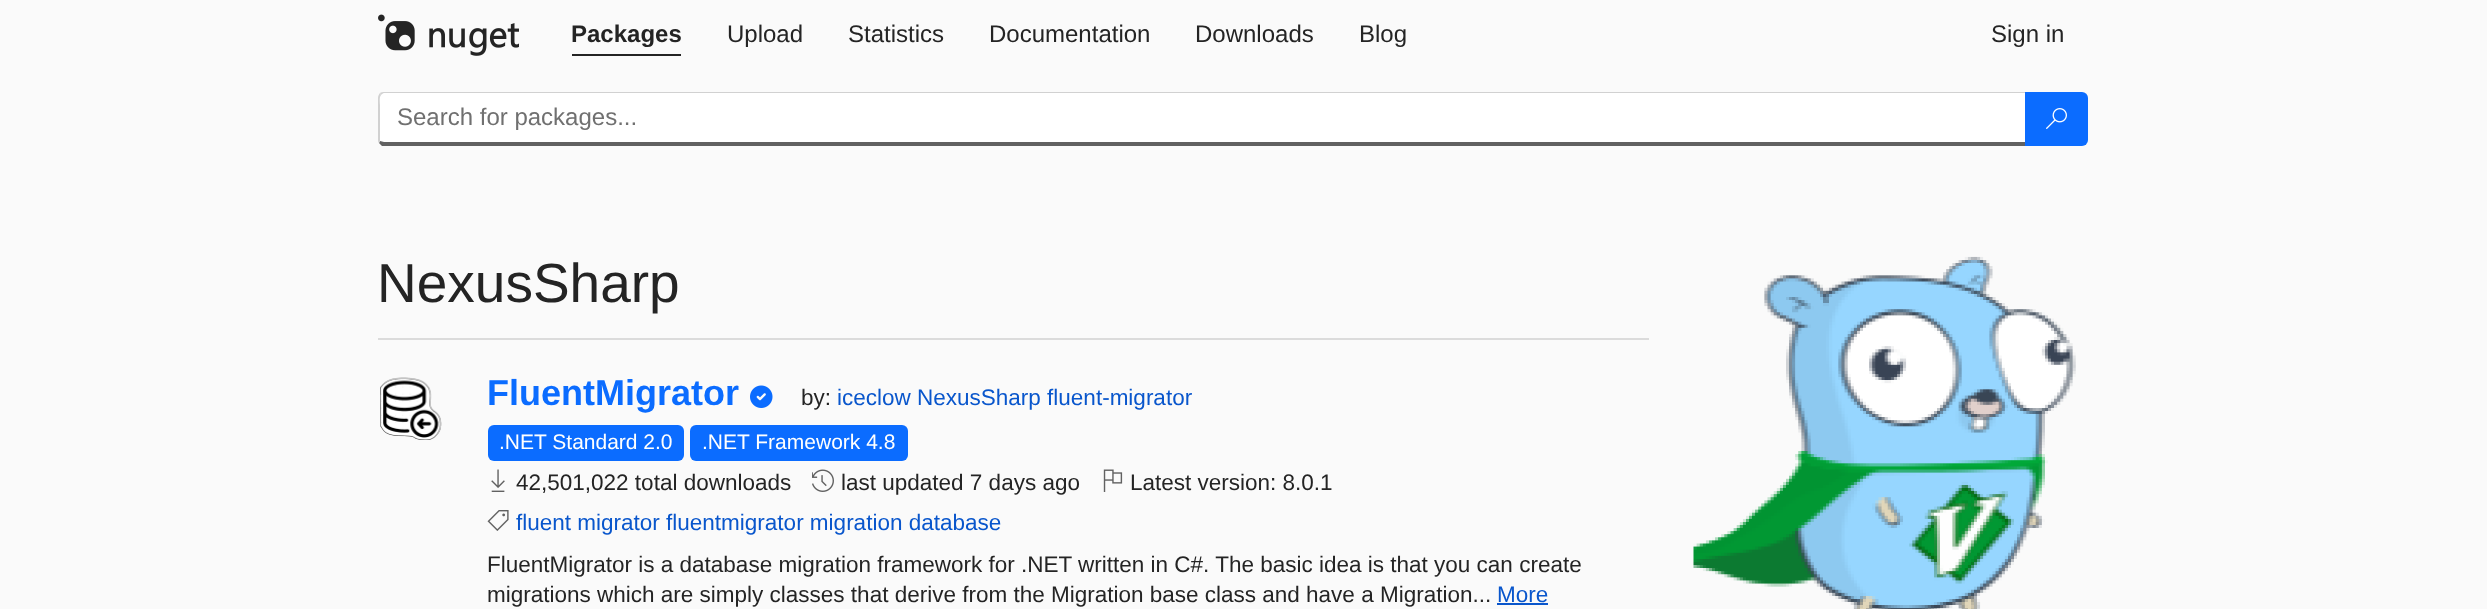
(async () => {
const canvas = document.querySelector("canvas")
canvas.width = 2487
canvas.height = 609
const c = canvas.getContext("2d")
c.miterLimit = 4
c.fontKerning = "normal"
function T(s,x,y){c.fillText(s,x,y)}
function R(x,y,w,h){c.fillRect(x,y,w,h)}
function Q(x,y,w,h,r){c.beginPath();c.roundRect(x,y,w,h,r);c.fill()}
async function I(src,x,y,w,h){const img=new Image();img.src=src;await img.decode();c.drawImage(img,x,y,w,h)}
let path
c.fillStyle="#fafafa"
R(0,0,2487,609)
await I("1.png",378,14,141,42)
c.font="bold 24px Liberation Sans"
c.fillStyle="#242424"
T("Packages",571,42)
R(572,54,109,2)
c.font="24px Liberation Sans"
T("Upload",727,42)
T("Statistics",848,42)
T("Documentation",989,42)
T("Downloads",1195,42)
T("Blog",1359,42)
T("Sign in",1991,42)
c.fillStyle="#fff"
path = new Path2D("M384 93h1641v49h-1641c-2 0-4-1-4-2v-42c0-3 2-5 4-5z")
c.fill(path)
c.fillStyle="#d1d1d1"
path = new Path2D("M384 92c-1 0-3 0-4 1l1 2c1-1 2-2 3-2h1641l1-1z")
c.fill(path)
c.fillStyle="#616161"
path = new Path2D("M382 146l-3-3l1-2l4 1h1641l1 4z")
c.fill(path)
c.fillStyle="#d1d1d1"
path = new Path2D("M378 98v42c0 1 0 2 1 3l1-2v-36c0-2-1-8 1-10l-1-2c-1 1-2 3-2 5z")
c.fill(path)
c.fillStyle="#707070"
T("Search for packages...",397,125)
c.fillStyle="#0b6cff"
c.beginPath()
c.roundRect(2025,92,63,54,[0,6,6,0])
c.fill()
await I("2.png",2046,108,21,21)
c.font="55px Liberation Sans"
c.fillStyle="#242424"
T("NexusSharp",377,302)
c.fillStyle="#dbdbdb"
R(378,338,1271,2)
await I("3.png",380,377,62,63)
c.font="bold 36px Liberation Sans"
c.fillStyle="#0b6cff"
T("FluentMigrator",487,405)
await I("4.png",750,385,23,23)
c.font="22.5px Liberation Sans"
c.fillStyle="#242424"
T("by:",801,405)
c.fillStyle="#0956cc"
T("iceclow NexusSharp fluent-migrator",837,405)
c.fillStyle="#0b6cff"
Q(488,425,196,36,6)
c.font="21px Liberation Sans"
c.fillStyle="#fff"
T(".NET Standard 2.0",499,449)
c.fillStyle="#0b6cff"
Q(690,425,218,36,6)
c.fillStyle="#fff"
T(".NET Framework 4.8",702,449)
await I("5.png",491,469,14,23)
c.font="22.5px Liberation Sans"
c.fillStyle="#242424"
T("42,501,022 total downloads",516,490)
await I("6.png",812,469,22,23)
T("last updated 7 days ago",841,490)
await I("7.png",1103,469,20,23)
T("Latest version: 8.0.1",1130,490)
await I("8.png",487,510,22,21)
c.fillStyle="#0956cc"
T("fluent migrator fluentmigrator migration database",516,530)
c.fillStyle="#242424"
T("FluentMigrator is a database migration framework for .NET written in C#. The basic idea is that you can create",487,572)
T("migrations which are simply classes that derive from the Migration base class and have a Migration...",487,602)
c.fillStyle="#0956cc"
T("More",1497,602)
R(1497,603,51,2)
await I("9.png",1693,256,383,353)
})()
